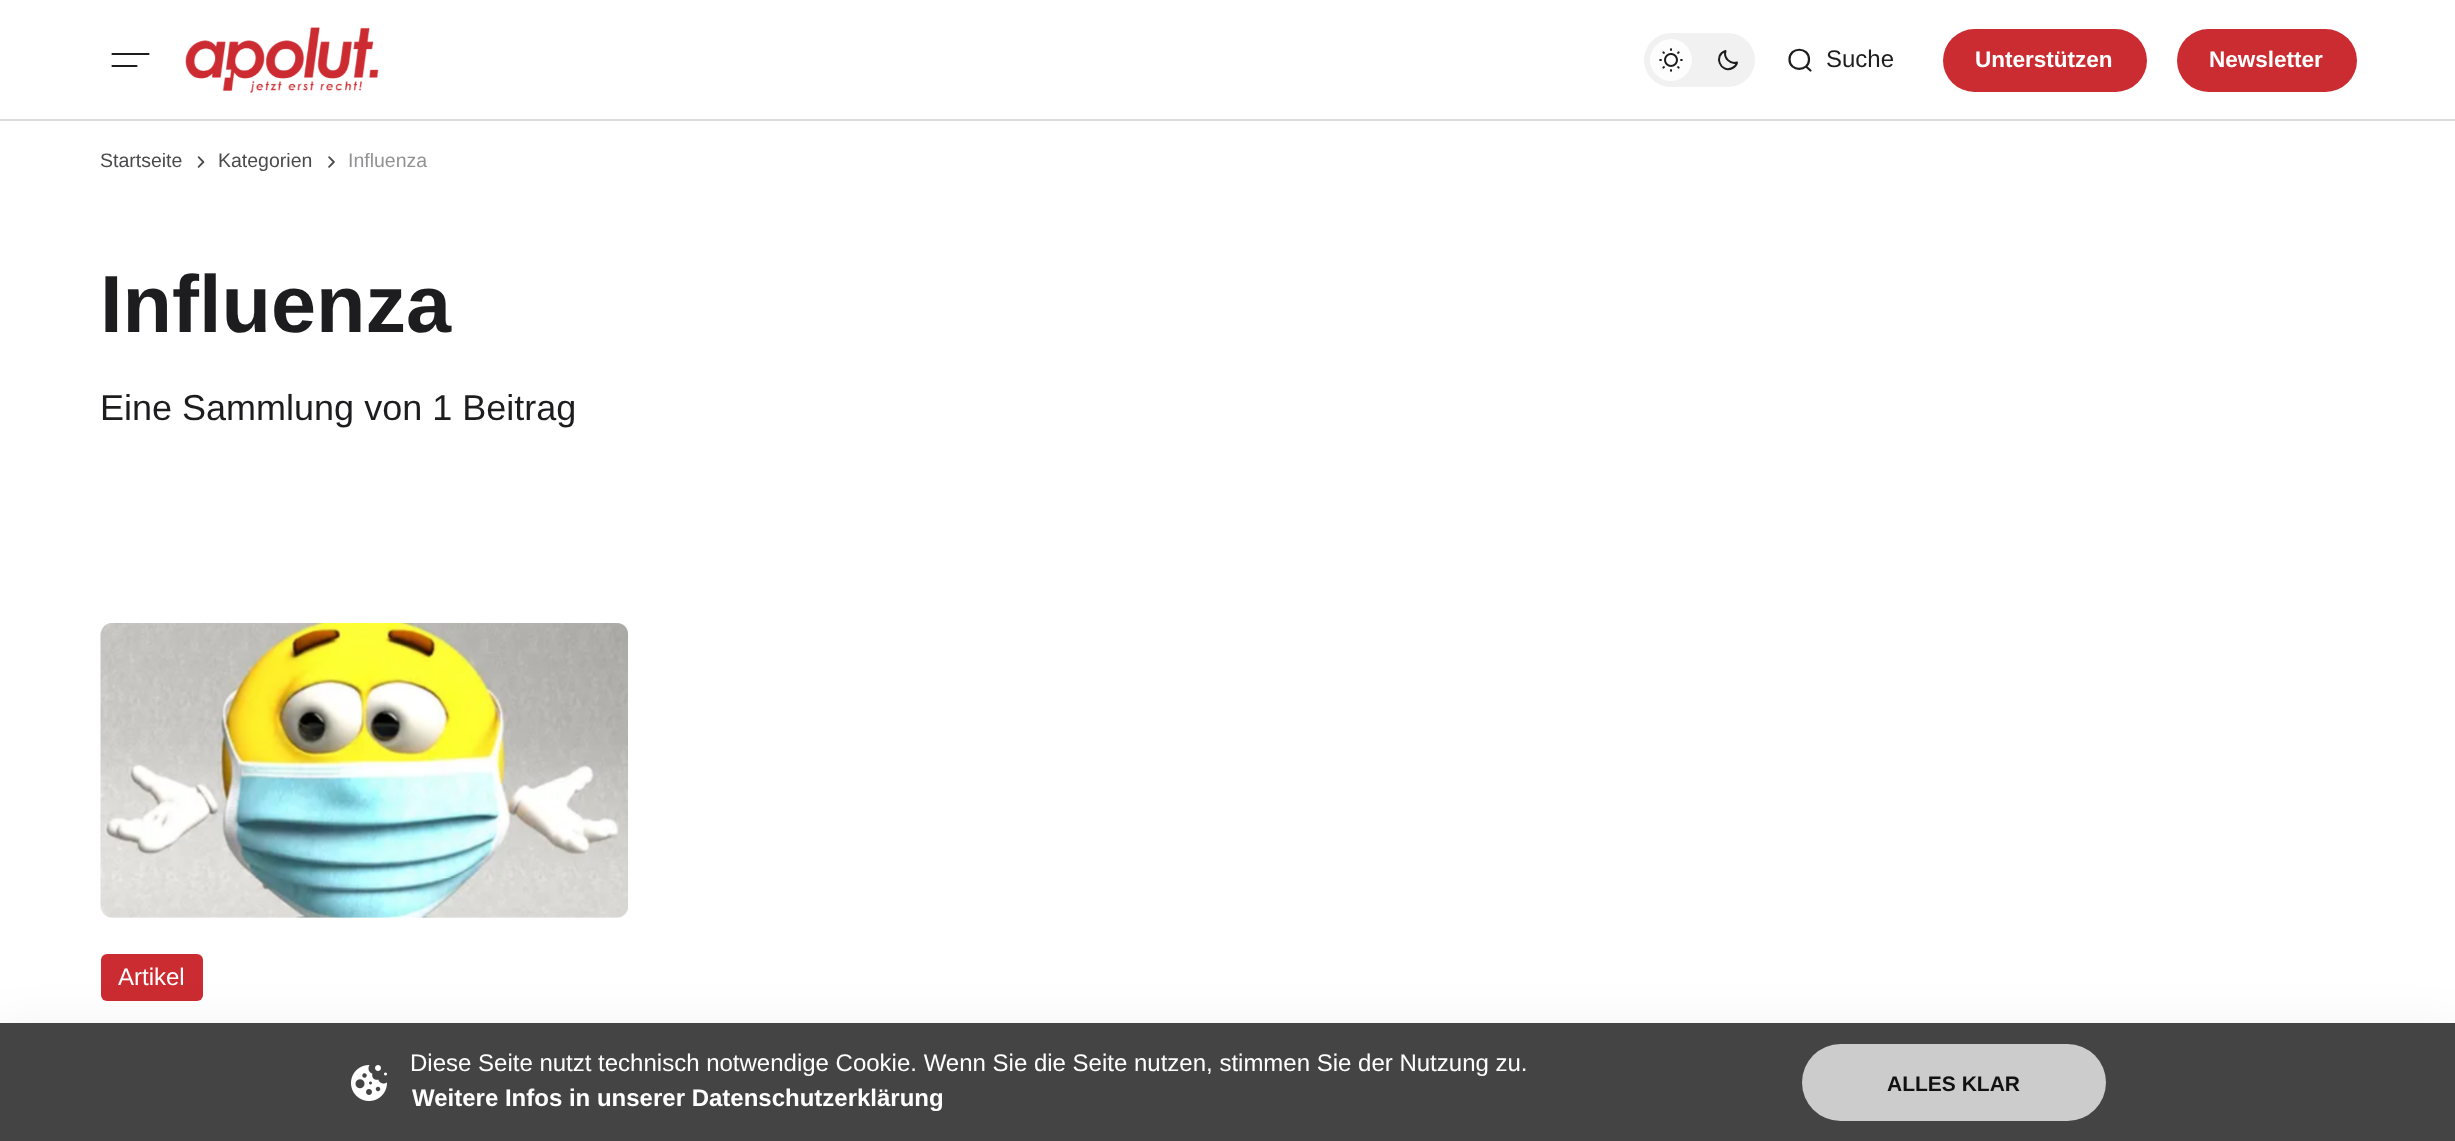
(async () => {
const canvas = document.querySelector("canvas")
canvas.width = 2455
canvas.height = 1141
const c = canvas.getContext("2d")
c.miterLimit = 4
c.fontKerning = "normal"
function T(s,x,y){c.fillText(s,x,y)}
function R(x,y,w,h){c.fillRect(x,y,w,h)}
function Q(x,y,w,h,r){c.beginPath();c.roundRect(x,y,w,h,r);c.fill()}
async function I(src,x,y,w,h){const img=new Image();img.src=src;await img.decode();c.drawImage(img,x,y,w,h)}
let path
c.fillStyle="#fff"
R(0,0,2455,1141)
c.fillStyle="#ddd"
R(0,119,2455,2)
path = new Path2D("M112.5 54h36m-36 12h24")
c.strokeStyle="#1d1d1f"
c.lineWidth=2.2
c.lineCap="round"
c.stroke(path)
await I("1.png",185,27,194,66)
c.fillStyle="#f1f1f2"
Q(1644,33,111,54,27)
c.fillStyle="#fdfdfd"
c.beginPath()
c.arc(1671,60,21,0,7)
c.fill()
await I("2.png",1659,48,24,24)
path = new Path2D("M1737 62.5c-7 2-13.5-4.5-11.5-11.5c-12.5 4-5 23 7 17c2-1 4-3 4.5-5.5z")
c.lineWidth=2
c.lineCap="butt"
c.lineJoin="round"
c.stroke(path)
path = new Path2D("M1806 66.5l4.5 4m-1.5-11c0 12.5-19.5 12.5-19.5 0c0-13 19.5-13 19.5 0z")
c.lineWidth=2.2
c.lineCap="round"
c.lineJoin="miter"
c.stroke(path)
c.font="24px Liberation Sans"
c.fillStyle="#1d1d1f"
T("Suche",1826,67)
c.fillStyle="#cb2c31"
Q(1943,29,204,63,31.5)
c.font="bold 22.5px Liberation Sans"
c.fillStyle="#fff"
T("Unterstützen",1975,67)
c.fillStyle="#cb2c31"
Q(2177,29,180,63,31.5)
c.fillStyle="#fff"
T("Newsletter",2209,67)
c.font="19.5px Liberation Sans"
c.fillStyle="#4a4a4c"
T("Startseite",100,167)
await I("3.png",197,156,8,12)
T("Kategorien",218,167)
await I("4.png",328,156,7,12)
c.fillStyle="#929294"
T("Influenza",348,167)
c.font="bold 81px Liberation Sans"
c.fillStyle="#1d1d1f"
T("Influenza",100,332)
c.font="36px Liberation Sans"
T("Eine Sammlung von 1 Beitrag",100,420)
await I("5.png",100,623,528,295)
c.fillStyle="#cb2c31"
Q(101,954,102,47,6)
c.font="24px Liberation Sans"
c.fillStyle="#fff"
T("Artikel",118,985)
c.fillStyle="#0000000d"
c.filter="blur(22.5px)"
c.beginPath()
c.rect(0,1023,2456,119)
c.fill()
c.filter="none"
c.fillStyle="#444"
R(0,1023,2455,118)
await I("6.png",351,1065,36,36)
c.fillStyle="#fff"
T("Diese Seite nutzt technisch notwendige Cookie. Wenn Sie die Seite nutzen, stimmen Sie der Nutzung zu.",410,1071)
c.font="bold 24px Liberation Sans"
T("Weitere Infos in unserer Datenschutzerklärung",412,1106)
c.fillStyle="#ccc"
Q(1802,1044,304,77,38.5)
c.font="bold 21px Liberation Sans"
c.fillStyle="#111"
T("ALLES KLAR",1887,1091)
})()
